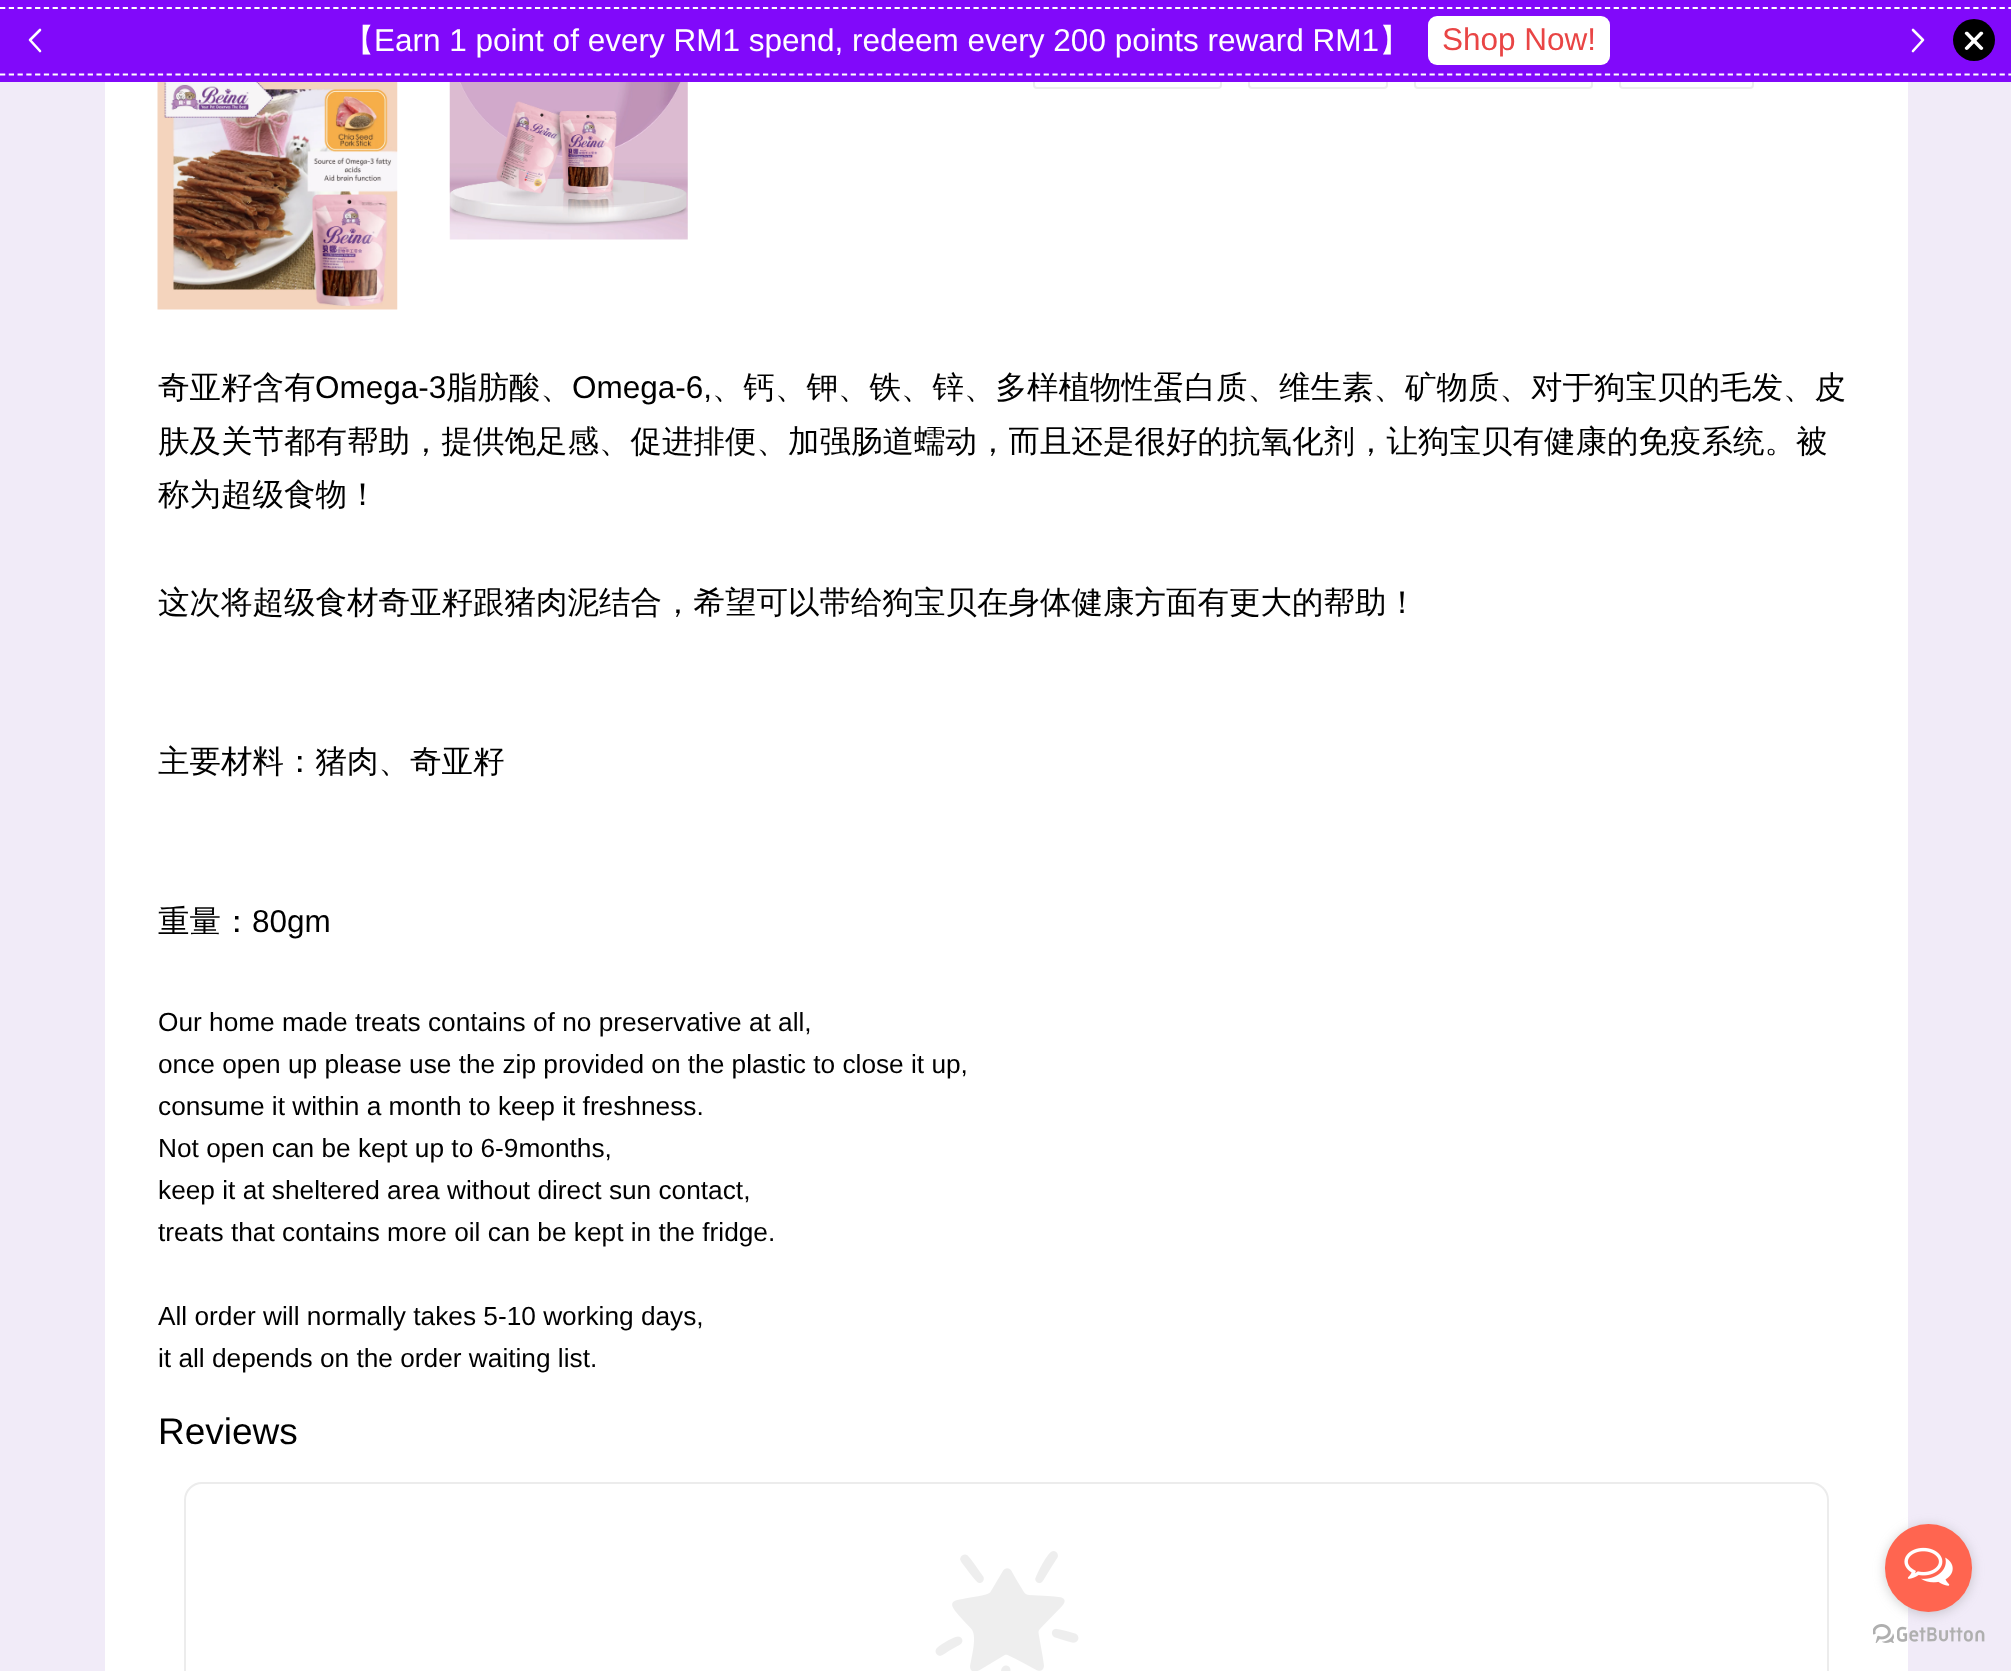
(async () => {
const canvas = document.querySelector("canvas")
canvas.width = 2011
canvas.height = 1671
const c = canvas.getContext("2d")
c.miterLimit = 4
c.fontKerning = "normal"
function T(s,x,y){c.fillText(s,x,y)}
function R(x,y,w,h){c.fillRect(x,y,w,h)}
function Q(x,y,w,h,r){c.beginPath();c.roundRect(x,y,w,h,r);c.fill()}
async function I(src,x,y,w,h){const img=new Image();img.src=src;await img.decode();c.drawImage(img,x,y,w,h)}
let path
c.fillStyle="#f1ebf8"
R(0,0,2011,1671)
c.fillStyle="#fff"
R(105,82,1803,1589)
c.beginPath()
c.roundRect(1034,38,187,50,3)
c.strokeStyle="#ececec"
c.lineWidth=2
c.stroke()
c.beginPath()
c.roundRect(1249,38,138,50,3)
c.stroke()
c.beginPath()
c.roundRect(1415,38,177,50,3)
c.stroke()
c.beginPath()
c.roundRect(1620,38,133,50,3)
c.stroke()
c.fillStyle="#8109fa"
R(0,0,2011,82)
path = new Path2D("M0 8h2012.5")
c.strokeStyle="#fff"
c.lineWidth=1.8
c.setLineDash([5.25,3.52])
c.stroke(path)
path = new Path2D("M0 74.5h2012.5")
c.stroke(path)
path = new Path2D("M40 30l-10 10l10 11")
c.lineWidth=2.6
c.lineCap="round"
c.lineJoin="round"
c.setLineDash([])
c.stroke(path)
c.font="500 31.5px WenQuanYi Zen Hei"
c.fillStyle="#fff"
T("【",343,51)
c.font="31.5px Liberation Sans"
T("Earn 1 point of every RM1 spend, redeem every 200 points reward RM1",374,51)
c.font="500 31.5px WenQuanYi Zen Hei"
T("】",1379,51)
Q(1428,16,182,49,9)
c.font="31.5px Liberation Sans"
c.fillStyle="#e94545"
T("Shop Now!",1442,50)
path = new Path2D("M1913 30l10 10l-10 11")
c.stroke(path)
c.fillStyle="#000"
c.beginPath()
c.arc(1974,40,21,0,7)
c.fill()
c.fillStyle="#fff"
path = new Path2D("M1982.5 32c1 1 1 2 0 2.5l-14.5 15c-1 .5-2 .5-2.5 0c-1-1-1-2 0-2.5l14.5-15c1-.5 2-.5 2.5 0z")
c.fill(path)
path = new Path2D("M1965.5 32c.5-.5 1.5-.5 2.5 0l14.5 15c1 .5 1 1.5 0 2.5c-.5 .5-1.5 .5-2.5 0l-14.5-15c-1-.5-1-1.5 0-2.5z")
c.fill(path)
await I("1.png",157,82,241,228)
await I("2.png",449,82,239,158)
c.font="500 31.5px WenQuanYi Zen Hei"
c.fillStyle="#000"
T("奇亚籽含有",158,398)
c.font="31.5px Liberation Sans"
T("Omega-3",315,398)
c.font="500 31.5px WenQuanYi Zen Hei"
T("脂肪酸、",446,398)
c.font="31.5px Liberation Sans"
T("Omega-6,",572,398)
c.font="500 31.5px WenQuanYi Zen Hei"
T("、钙、钾、铁、锌、多样植物性蛋白质、维生素、矿物质、对于狗宝贝的毛发、皮",712,398)
T("肤及关节都有帮助，提供饱足感、促进排便、加强肠道蠕动，而且还是很好的抗氧化剂，让狗宝贝有健康的免疫系统。被",158,452)
T("称为超级食物！",158,505)
T("这次将超级食材奇亚籽跟猪肉泥结合，希望可以带给狗宝贝在身体健康方面有更大的帮助！",158,613)
T("主要材料：猪肉、奇亚籽",158,772)
T("重量：",158,932)
c.font="31.5px Liberation Sans"
T("80gm",252,932)
c.font="26.25px Liberation Sans"
T("Our home made treats contains of no preservative at all,",158,1031)
T("once open up please use the zip provided on the plastic to close it up,",158,1073)
T("consume it within a month to keep it freshness.",158,1115)
T("Not open can be kept up to 6-9months,",158,1157)
T("keep it at sheltered area without direct sun contact,",158,1199)
T("treats that contains more oil can be kept in the fridge.",158,1241)
T("All order will normally takes 5-10 working days,",158,1325)
T("it all depends on the order waiting list.",158,1367)
c.font="37px Liberation Sans"
T("Reviews",158,1444)
c.beginPath()
c.roundRect(185,1483,1643,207,17)
c.strokeStyle="#ececec"
c.lineWidth=2
c.lineJoin="miter"
c.stroke()
await I("3.png",935,1551,144,120)
await I("5.png",1873,1624,112,19)
c.fillStyle="#88888866"
c.filter="blur(6px)"
c.beginPath()
c.roundRect(1885,1526,87,88,43.5)
c.fill()
c.filter="none"
c.fillStyle="#ff6550"
Q(1885,1524,87,88,43.5)
await I("4.png",1904,1547,49,39)
})()
